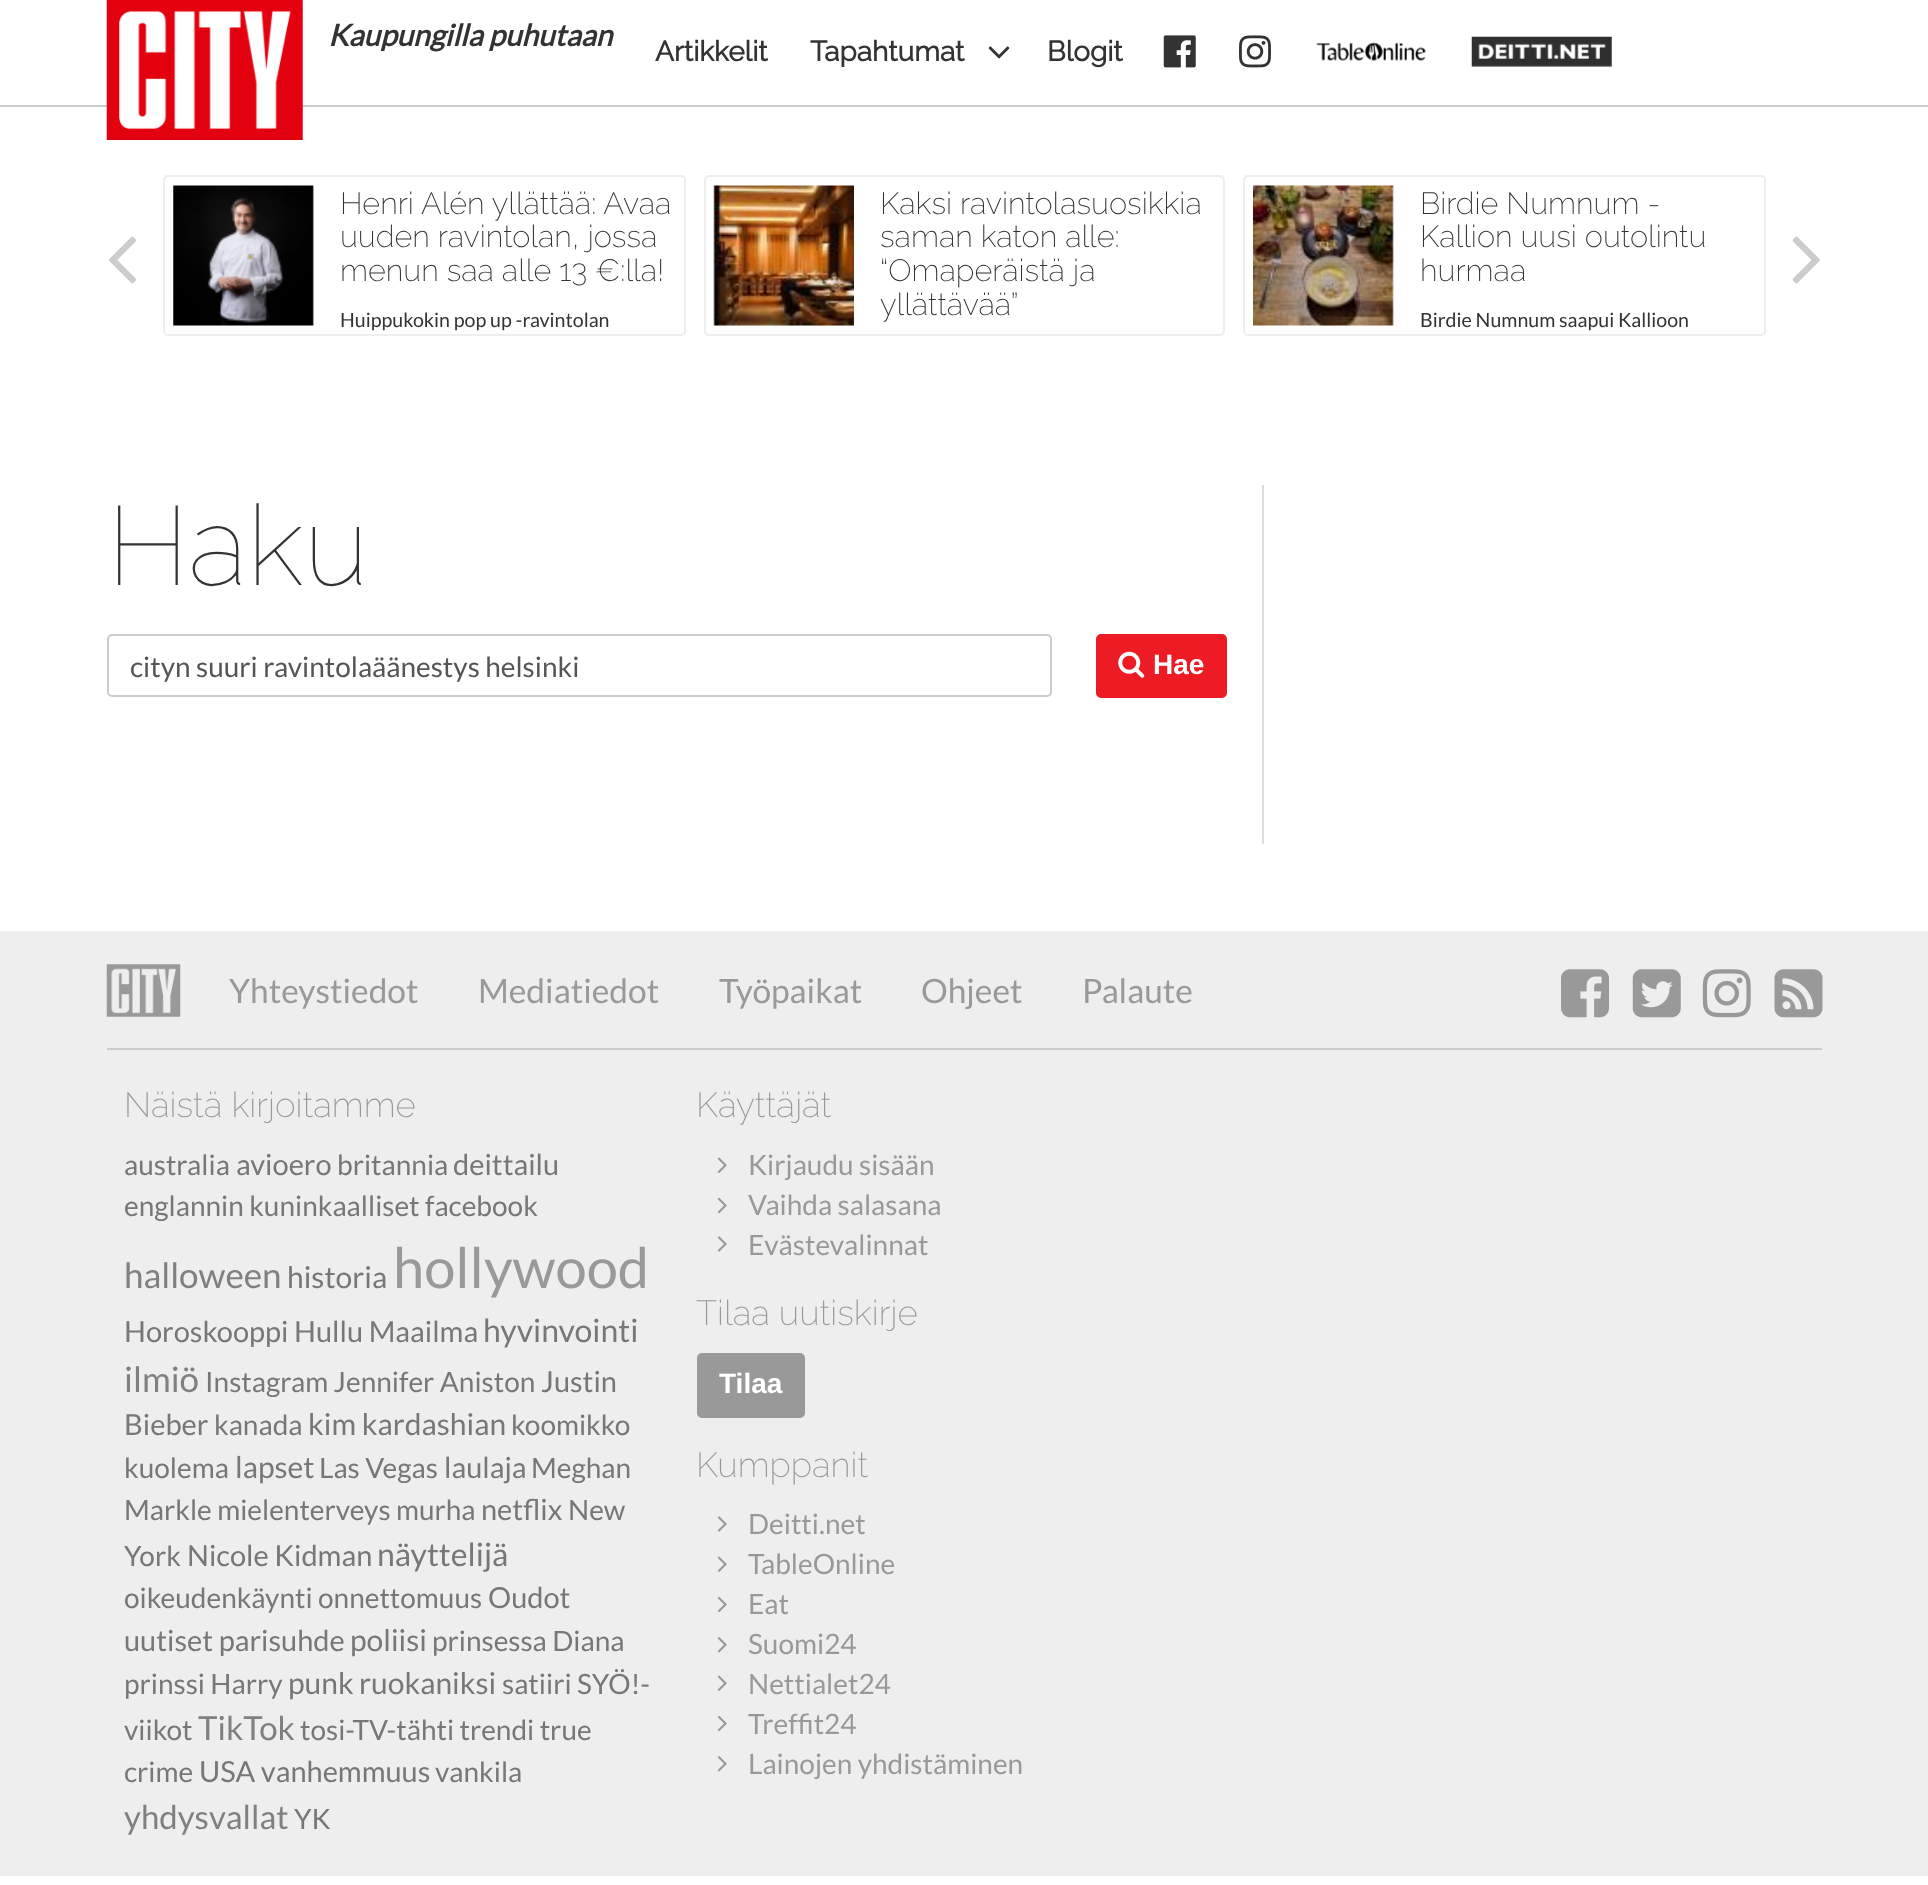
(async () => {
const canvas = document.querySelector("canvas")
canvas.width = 1928
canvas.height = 1885
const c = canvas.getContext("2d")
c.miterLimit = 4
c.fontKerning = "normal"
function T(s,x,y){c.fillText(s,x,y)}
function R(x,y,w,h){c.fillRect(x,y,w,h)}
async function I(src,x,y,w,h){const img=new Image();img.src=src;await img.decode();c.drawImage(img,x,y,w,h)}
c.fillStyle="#fff"
R(0,0,1928,1885)
c.fillStyle="#ccc"
R(0,105,1928,2)
await I("1.png",106,0,197,140)
c.font="italic bold 29.75px Lato"
c.fillStyle="#333"
T("Kaupungilla puhutaan",328,46)
c.font="bold 28px Raleway"
T("Artikkelit",655,61)
T("Tapahtumat",810,61)
await I("2.png",988,46,22,13)
T("Blogit",1047,61)
await I("3.png",1163,35,33,33)
await I("4.png",1239,35,32,33)
await I("5.png",1316,42,110,19)
await I("6.png",1471,36,141,31)
await I("7.png",109,236,28,48)
c.beginPath()
c.roundRect(164,176,521,159,4)
c.strokeStyle="#eee"
c.lineWidth=2
c.stroke()
await I("8.png",173,185,141,141)
c.font="200 30.75px Raleway"
T("Henri Alén yllättää: Avaa",340,214)
T("uuden ravintolan, jossa",340,247)
T("menun saa alle 13 €:lla!",340,281)
c.font="19.6px Lato"
T("Huippukokin pop up -ravintolan",340,327)
c.beginPath()
c.roundRect(705,176,519,159,4)
c.stroke()
await I("9.png",713,185,141,141)
c.font="200 30.75px Raleway"
T("Kaksi ravintolasuosikkia",880,214)
T("saman katon alle:",880,247)
T("“Omaperäistä ja",880,281)
T("yllättävää”",880,315)
c.beginPath()
c.roundRect(1244,176,521,159,4)
c.stroke()
await I("10.png",1253,185,141,141)
T("Birdie Numnum -",1420,214)
T("Kallion uusi outolintu",1420,247)
T("hurmaa",1420,281)
c.font="19.6px Lato"
T("Birdie Numnum saapui Kallioon",1420,327)
await I("11.png",1792,236,28,48)
c.font="100 112px Raleway"
T("Haku",107,585)
c.beginPath()
c.roundRect(108,635,943,61,4)
c.strokeStyle="#ccc"
c.stroke()
c.font="28px Lato"
c.fillStyle="#555"
T("cityn suuri ravintolaäänestys helsinki",130,677)
c.fillStyle="#ed1c24"
c.beginPath()
c.roundRect(1097,635,129,62,4)
c.fill()
c.strokeStyle="#ed1c24"
c.stroke()
await I("12.png",1118,651,27,27)
c.font="bold 28px Liberation Sans"
c.fillStyle="#fff"
T("Hae",1153,674)
c.fillStyle="#ddd"
R(1262,485,2,359)
c.fillStyle="#eee"
R(0,931,1928,945)
c.fillStyle="#ccc"
R(107,1048,1715,2)
await I("13.png",106,964,75,53)
c.font="33.5px Lato"
c.fillStyle="#999"
T("Yhteystiedot",229,1003)
T("Mediatiedot",478,1003)
T("Työpaikat",719,1003)
T("Ohjeet",921,1003)
T("Palaute",1082,1003)
await I("14.png",1561,969,48,49)
await I("15.png",1632,969,49,49)
await I("16.png",1702,969,49,49)
await I("17.png",1774,969,49,49)
c.font="200 35px Raleway"
T("Näistä kirjoitamme",124,1117)
c.font="28px Lato"
c.fillStyle="#777"
T("australia",124,1175)
c.font="29px Lato"
T("avioero",236,1175)
c.font="28px Lato"
T("britannia",337,1175)
c.font="29px Lato"
T("deittailu",453,1175)
c.font="28px Lato"
T("englannin kuninkaalliset facebook",124,1216)
c.font="35px Lato"
c.fillStyle="#808080"
T("halloween",124,1288)
c.font="30px Lato"
c.fillStyle="#777"
T("historia",287,1288)
c.font="56px Lato"
c.fillStyle="#999"
T("hollywood",393,1288)
c.font="29px Lato"
c.fillStyle="#777"
T("Horoskooppi Hullu Maailma",124,1342)
c.font="32px Lato"
T("hyvinvointi",483,1342)
c.font="35px Lato"
c.fillStyle="#808080"
T("ilmiö",124,1392)
c.font="28px Lato"
c.fillStyle="#777"
T("Instagram Jennifer Aniston",205,1392)
c.font="29px Lato"
T("Justin",541,1392)
T("Bieber",124,1435)
c.font="28px Lato"
T("kanada",214,1435)
c.font="30px Lato"
T("kim kardashian",308,1435)
c.font="28px Lato"
T("koomikko",511,1435)
T("kuolema",124,1478)
c.font="30px Lato"
T("lapset",235,1478)
c.font="28px Lato"
T("Las Vegas",319,1478)
c.font="29px Lato"
T("laulaja",444,1478)
c.font="28px Lato"
T("Meghan",531,1478)
T("Markle mielenterveys murha",124,1520)
c.font="29px Lato"
T("netflix",481,1520)
c.font="28px Lato"
T("New",568,1520)
T("York",124,1566)
c.font="29px Lato"
T("Nicole Kidman",187,1566)
c.font="32px Lato"
T("näyttelijä",377,1566)
c.font="28px Lato"
T("oikeudenkäynti onnettomuus",124,1608)
c.font="29px Lato"
T("Oudot",488,1608)
T("uutiset parisuhde",124,1651)
c.font="30px Lato"
T("poliisi",350,1651)
c.font="28px Lato"
T("prinsessa Diana",432,1651)
T("prinssi Harry",124,1694)
c.font="30px Lato"
T("punk",288,1694)
T("ruokaniksi",359,1694)
c.font="28px Lato"
T("satiiri SYÖ!-",502,1694)
T("viikot",124,1740)
c.font="33px Lato"
c.fillStyle="#808080"
T("TikTok",198,1740)
c.font="28px Lato"
c.fillStyle="#777"
T("tosi-TV-tähti trendi true",300,1740)
T("crime",124,1782)
c.font="29px Lato"
T("USA vanhemmuus",199,1782)
c.font="28px Lato"
T("vankila",435,1782)
c.font="33px Lato"
c.fillStyle="#808080"
T("yhdysvallat",124,1829)
c.font="28px Lato"
c.fillStyle="#777"
T("YK",294,1829)
c.font="200 35px Raleway"
c.fillStyle="#999"
T("Käyttäjät",696,1117)
await I("18.png",717,1157,10,16)
c.font="28px Lato"
T("Kirjaudu sisään",748,1175)
await I("19.png",717,1197,10,17)
T("Vaihda salasana",748,1215)
await I("20.png",717,1236,10,16)
T("Evästevalinnat",748,1255)
c.font="200 35px Raleway"
T("Tilaa uutiskirje",696,1325)
c.beginPath()
c.roundRect(698,1354,106,63,4)
c.fill()
c.strokeStyle="#999"
c.stroke()
c.font="bold 28px Liberation Sans"
c.fillStyle="#fff"
T("Tilaa",719,1393)
c.font="200 35px Raleway"
c.fillStyle="#999"
T("Kumppanit",696,1477)
await I("20.png",717,1516,10,16)
c.font="28px Lato"
T("Deitti.net",748,1534)
await I("18.png",717,1556,10,16)
T("TableOnline",748,1574)
await I("19.png",717,1596,10,17)
T("Eat",748,1614)
await I("21.png",717,1637,10,16)
T("Suomi24",748,1654)
await I("18.png",717,1675,10,16)
T("Nettialet24",748,1694)
await I("19.png",717,1715,10,17)
T("Treffit24",748,1734)
await I("21.png",717,1756,10,16)
T("Lainojen yhdistäminen",748,1774)
})()
